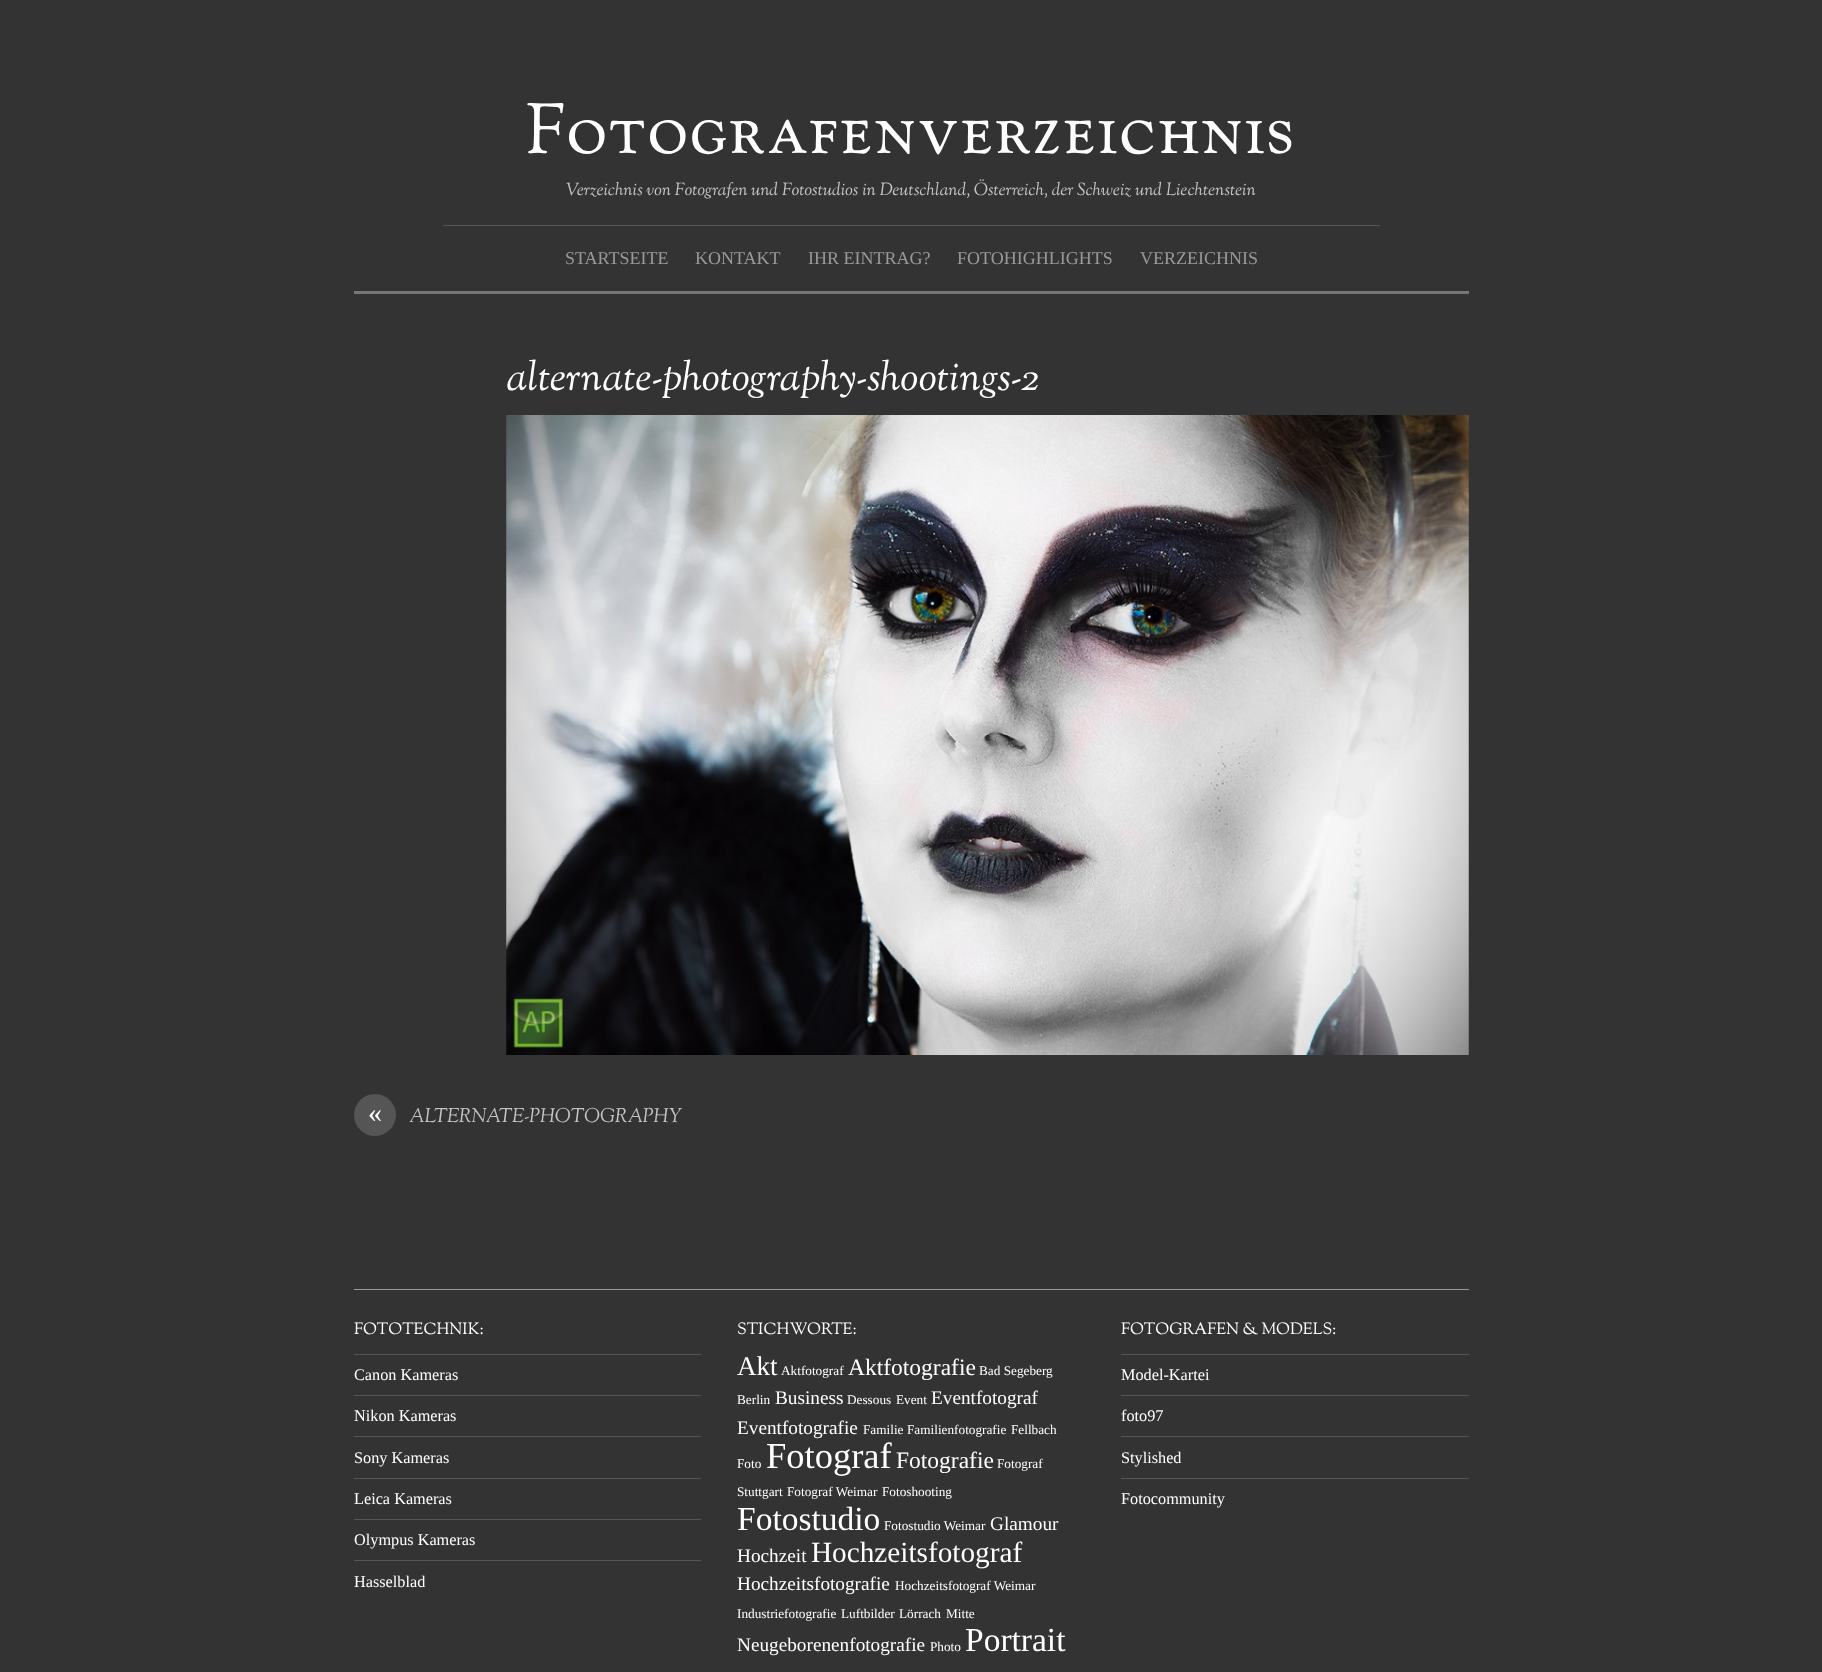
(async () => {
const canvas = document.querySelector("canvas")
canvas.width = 1822
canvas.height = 1672
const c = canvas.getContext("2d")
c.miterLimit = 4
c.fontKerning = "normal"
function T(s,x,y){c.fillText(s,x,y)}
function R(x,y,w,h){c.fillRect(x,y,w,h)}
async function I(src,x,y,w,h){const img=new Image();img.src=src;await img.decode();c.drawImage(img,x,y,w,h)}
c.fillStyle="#333"
R(0,0,1822,1672)
c.fillStyle="#777"
R(354,291,1115,3)
c.letterSpacing="2.5px"
c.font="500 70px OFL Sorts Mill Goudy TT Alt"
c.fillStyle="#fff"
T("Fotografenverzeichnis",526,153)
c.letterSpacing="0px"
c.font="italic 500 17.5px OFL Sorts Mill Goudy TT"
c.fillStyle="#c4c4c4"
T("Verzeichnis von Fotografen und Fotostudios in Deutschland, Österreich, der Schweiz und Liechtenstein",566,195)
c.fillStyle="#555"
R(443,225,937,1)
c.font="18px Liberation Serif"
c.fillStyle="#999"
T("STARTSEITE",565,264)
T("KONTAKT",695,264)
T("IHR EINTRAG?",808,264)
T("FOTOHIGHLIGHTS",957,264)
T("VERZEICHNIS",1140,264)
c.font="italic 500 41px OFL Sorts Mill Goudy TT"
c.fillStyle="#fff"
T("alternate-photography-shootings-2",506,390)
await I("1.png",506,415,963,640)
c.fillStyle="#555"
c.beginPath()
c.arc(375,1115,21,0,7)
c.fill()
c.font="28px Liberation Serif"
c.fillStyle="#fff"
T("«",368,1122)
c.font="italic 500 19.75px OFL Sorts Mill Goudy TT"
c.fillStyle="#c4c4c4"
T("ALTERNATE-PHOTOGRAPHY",409,1122)
c.fillStyle="#999"
R(354,1289,1115,1)
c.font="500 16.25px OFL Sorts Mill Goudy TT"
c.fillStyle="#fff"
T("FOTOTECHNIK:",354,1334)
c.fillStyle="#555"
R(354,1354,347,1)
c.font="16.25px Liberation Serif"
c.fillStyle="#fff"
T("Canon Kameras",354,1380)
c.fillStyle="#555"
R(354,1395,347,1)
c.fillStyle="#fff"
T("Nikon Kameras",354,1421)
c.fillStyle="#555"
R(354,1436,347,1)
c.fillStyle="#fff"
T("Sony Kameras",354,1463)
c.fillStyle="#555"
R(354,1478,347,1)
c.fillStyle="#fff"
T("Leica Kameras",354,1504)
c.fillStyle="#555"
R(354,1519,347,1)
c.fillStyle="#fff"
T("Olympus Kameras",354,1545)
c.fillStyle="#555"
R(354,1560,347,1)
c.fillStyle="#fff"
T("Hasselblad",354,1587)
c.font="500 16.25px OFL Sorts Mill Goudy TT"
T("STICHWORTE:",737,1334)
c.font="27px Liberation Serif"
T("Akt",737,1375)
c.font="13.25px Liberation Serif"
T("Aktfotograf",781,1375)
c.font="23.5px Liberation Serif"
T("Aktfotografie",848,1375)
c.font="13.25px Liberation Serif"
T("Bad Segeberg",979,1375)
T("Berlin",737,1404)
c.font="19.25px Liberation Serif"
T("Business",775,1404)
c.font="13.25px Liberation Serif"
T("Dessous",847,1404)
T("Event",896,1404)
c.font="19.25px Liberation Serif"
T("Eventfotograf",931,1404)
T("Eventfotografie",737,1434)
c.font="13.25px Liberation Serif"
T("Familie",863,1434)
T("Familienfotografie",907,1434)
T("Fellbach",1011,1434)
T("Foto",737,1468)
c.font="36.5px Liberation Serif"
T("Fotograf",766,1468)
c.font="23.5px Liberation Serif"
T("Fotografie",896,1468)
c.font="13.25px Liberation Serif"
T("Fotograf",997,1468)
T("Stuttgart",737,1496)
T("Fotograf Weimar",787,1496)
T("Fotoshooting",882,1496)
c.font="33.5px Liberation Serif"
T("Fotostudio",737,1530)
c.font="13.25px Liberation Serif"
T("Fotostudio Weimar",884,1530)
c.font="19.25px Liberation Serif"
T("Glamour",990,1530)
T("Hochzeit",737,1562)
c.font="29.25px Liberation Serif"
T("Hochzeitsfotograf",811,1562)
c.font="19.25px Liberation Serif"
T("Hochzeitsfotografie",737,1590)
c.font="13.25px Liberation Serif"
T("Hochzeitsfotograf Weimar",895,1590)
T("Industriefotografie",737,1618)
T("Luftbilder",841,1618)
T("Lörrach",899,1618)
T("Mitte",946,1618)
c.font="19.25px Liberation Serif"
T("Neugeborenenfotografie",737,1651)
c.font="13.25px Liberation Serif"
T("Photo",930,1651)
c.font="33.5px Liberation Serif"
T("Portrait",965,1651)
c.font="500 16.25px OFL Sorts Mill Goudy TT"
T("FOTOGRAFEN & MODELS:",1121,1334)
c.fillStyle="#555"
R(1121,1354,348,1)
c.font="16.25px Liberation Serif"
c.fillStyle="#fff"
T("Model-Kartei",1121,1380)
c.fillStyle="#555"
R(1121,1395,348,1)
c.fillStyle="#fff"
T("foto97",1121,1421)
c.fillStyle="#555"
R(1121,1436,348,1)
c.fillStyle="#fff"
T("Stylished",1121,1463)
c.fillStyle="#555"
R(1121,1478,348,1)
c.fillStyle="#fff"
T("Fotocommunity",1121,1504)
})()
